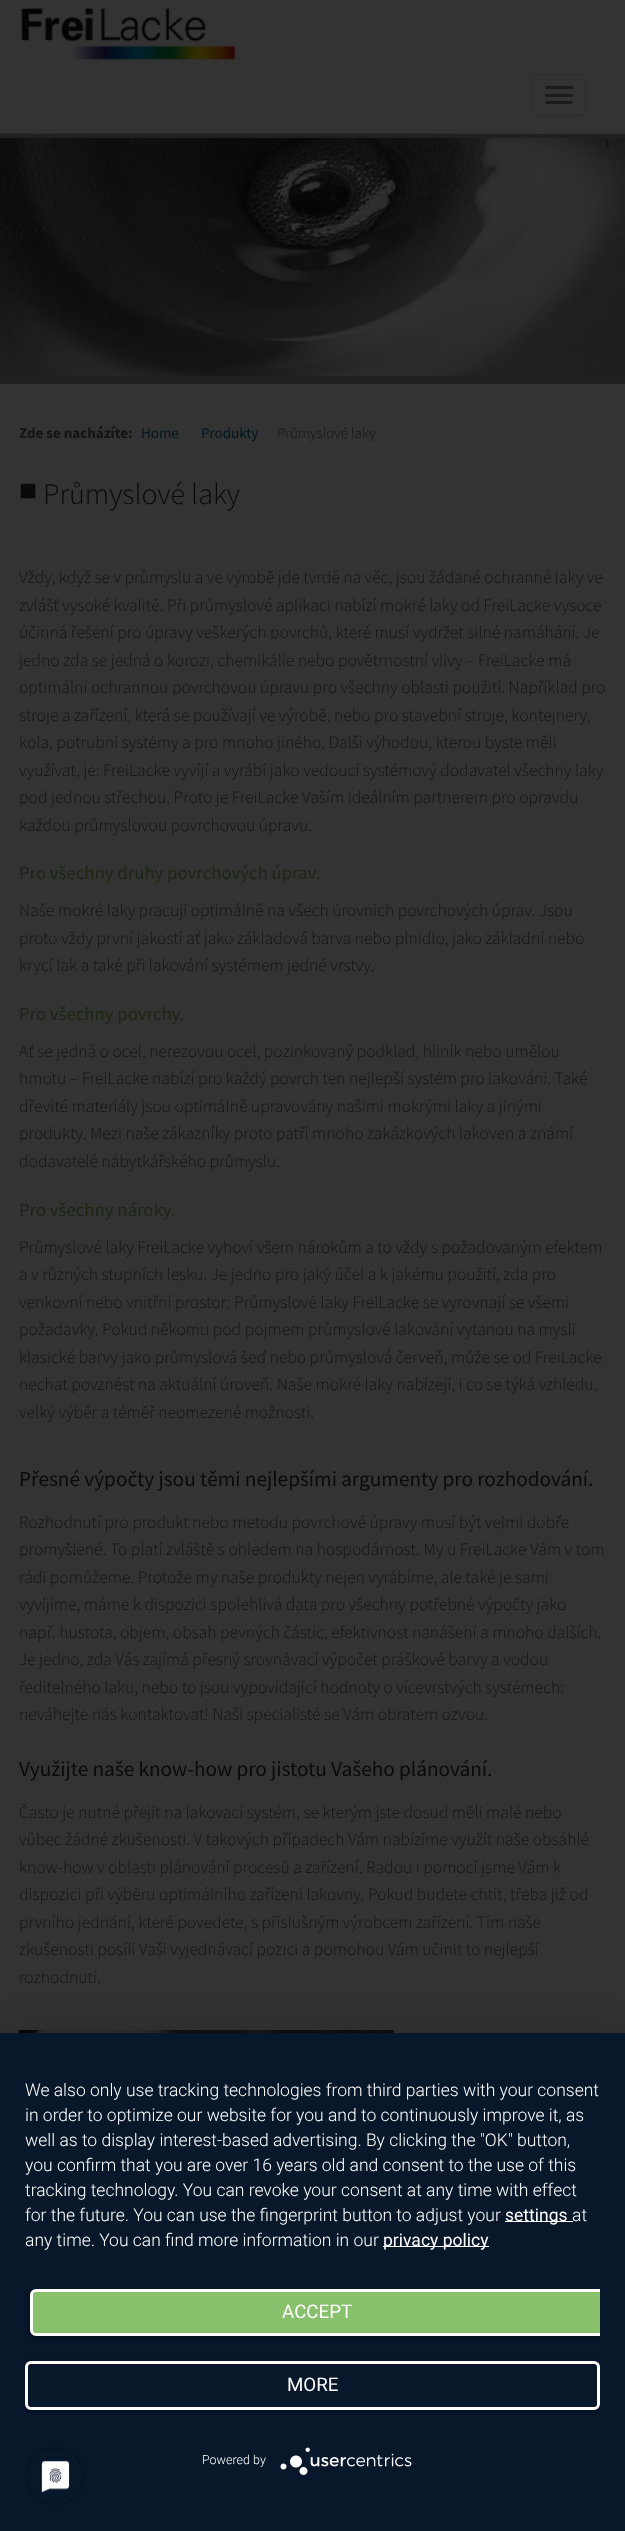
(async () => {
const canvas = document.querySelector("canvas")
canvas.width = 625
canvas.height = 2531
const c = canvas.getContext("2d")
c.miterLimit = 4
c.fontKerning = "normal"
function T(s,x,y){c.fillText(s,x,y)}
function R(x,y,w,h){c.fillRect(x,y,w,h)}
function Q(x,y,w,h,r){c.beginPath();c.roundRect(x,y,w,h,r);c.fill()}
async function I(src,x,y,w,h){const img=new Image();img.src=src;await img.decode();c.drawImage(img,x,y,w,h)}
c.fillStyle="#333"
R(0,0,625,2531)
await I("1.png",21,7,215,54)
c.beginPath()
c.roundRect(531.5,74.5,54,41,4.5)
c.strokeStyle="#2c2c2c"
c.stroke()
c.fillStyle="#1b1b1b"
Q(545,86,28,3,1.5)
Q(545,94,28,3,1.5)
Q(545,101,28,3,1.5)
await I("2.png",0,133,625,243)
c.fillStyle="#202020"
R(0,134,625,4)
R(0,376,625,8)
c.font="bold 15px Source Sans Pro"
c.fillStyle="#141414"
T("Zde se nacházíte:",19,438)
c.font="15px Source Sans Pro"
c.fillStyle="#00161f"
T("Home",141,438)
T("Produkty",201,438)
c.font="300 15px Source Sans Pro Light"
c.fillStyle="#141414"
T("Průmyslové laky",277,438)
c.font="30px Liberation Sans"
c.fillStyle="#0a0a0a"
T("■",19,500)
c.font="300 30px Source Sans Pro Light"
T("Průmyslové laky",43,504)
c.font="300 17.5px Source Sans Pro Light"
c.fillStyle="#141414"
T("Vždy, když se v průmyslu a ve výrobě jde tvrdě na věc, jsou žádané ochranné laky ve",19,583)
T("zvlášť vysoké kvalitě. Při průmyslové aplikaci nabízí mokré laky od FreiLacke vysoce",19,611)
T("účinná řešení pro úpravy veškerých povrchů, které musí vydržet silné namáhání. Je",19,638)
T("jedno zda se jedná o korozi, chemikálie nebo povětrnostní vlivy – FreiLacke má",19,666)
T("optimální ochrannou povrchovou úpravu pro všechny oblasti použití. Například pro",19,693)
T("stroje a zařízení, která se používají ve výrobě, nebo pro stavební stroje, kontejnery,",19,721)
T("kola, potrubní systémy a pro mnoho jiného. Další výhodou, kterou byste měli",19,748)
T("využívat, je: FreiLacke vyvíjí a vyrábí jako vedoucí systémový dodavatel všechny laky",19,776)
T("pod jednou střechou. Proto je FreiLacke Vaším ideálním partnerem pro opravdu",19,803)
T("každou průmyslovou povrchovou úpravu.",19,831)
c.font="18.75px Source Sans Pro"
c.fillStyle="#1b2615"
T("Pro všechny druhy povrchových úprav.",19,879)
c.font="300 17.5px Source Sans Pro Light"
c.fillStyle="#141414"
T("Naše mokré laky pracují optimálně na všech úrovních povrchových úprav. Jsou",19,916)
T("proto vždy první jakostí ať jako základová barva nebo plnidlo, jako základní nebo",19,944)
T("krycí lak a také při lakování systémem jedné vrstvy.",19,971)
c.font="18.75px Source Sans Pro"
c.fillStyle="#1b2615"
T("Pro všechny povrchy.",19,1020)
c.font="300 17.5px Source Sans Pro Light"
c.fillStyle="#141414"
T("Ať se jedná o ocel, nerezovou ocel, pozinkovaný podklad, hliník nebo umělou",19,1057)
T("hmotu – FreiLacke nabízí pro každý povrch ten nejlepší systém pro lakování. Také",19,1084)
T("dřevité materiály jsou optimálně upravovány našimi mokrými laky a jinými",19,1112)
T("produkty. Mezi naše zákazníky proto patří mnoho zakázkových lakoven a známí",19,1139)
T("dodavatelé nábytkářského průmyslu.",19,1167)
c.font="18.75px Source Sans Pro"
c.fillStyle="#1b2615"
T("Pro všechny nároky.",19,1216)
c.font="300 17.5px Source Sans Pro Light"
c.fillStyle="#141414"
T("Průmyslové laky FreiLacke vyhoví všem nárokům a to vždy s požadovaným efektem",19,1253)
T("a v různých stupních lesku. Je jedno pro jaký účel a k jakému použití, zda pro",19,1280)
T("venkovní nebo vnitřní prostor: Průmyslové laky FreiLacke se vyrovnají se všemi",19,1308)
T("požadavky. Pokud někomu pod pojmem průmyslové lakování vytanou na mysli",19,1335)
T("klasické barvy jako průmyslová šeď nebo průmyslová červeň, může se od FreiLacke",19,1363)
T("nechat povznést na aktuální úroveň. Naše mokré laky nabízejí, i co se týká vzhledu,",19,1390)
T("velký výběr a téměř neomezené možnosti.",19,1418)
c.font="21.25px Source Sans Pro"
c.fillStyle="#0a0a0a"
T("Přesné výpočty jsou těmi nejlepšími argumenty pro rozhodování.",19,1486)
c.font="300 17.5px Source Sans Pro Light"
c.fillStyle="#141414"
T("Rozhodnutí pro produkt nebo metodu povrchové úpravy musí být velmi dobře",19,1528)
T("promyšlené. To platí zvláště s ohledem na hospodárnost. My u FreiLacke Vám v tom",19,1555)
T("rádi pomůžeme. Protože my naše produkty nejen vyrábíme, ale také je sami",19,1583)
T("vyvíjíme, máme k dispozici spolehlivá data pro všechny potřebné výpočty jako",19,1610)
T("např. hustota, objem, obsah pevných částic, efektivnost nanášení a mnoho dalších.",19,1638)
T("Je jedno, zda Vás zajímá přesný srovnávací výpočet práškové barvy a vodou",19,1665)
T("ředitelného laku, nebo to jsou vypovídající hodnoty o vícevrstvých systémech:",19,1693)
T("neváhejte nás kontaktovat! Naši specialisté se Vám obratem ozvou.",19,1720)
c.font="21.25px Source Sans Pro"
c.fillStyle="#0a0a0a"
T("Využijte naše know-how pro jistotu Vašeho plánování.",19,1776)
c.font="300 17.5px Source Sans Pro Light"
c.fillStyle="#141414"
T("Často je nutné přejít na lakovací systém, se kterým jste dosud měli malé nebo",19,1818)
T("vůbec žádné zkušenosti. V takových případech Vám nabízíme využít naše obsáhlé",19,1845)
T("know-how v oblasti plánování procesů a zařízení. Radou i pomocí jsme Vám k",19,1873)
T("dispozici při výběru optimálního zařízení lakovny. Pokud budete chtít, třeba již od",19,1900)
T("prvního jednání, které povedete, s příslušným výrobcem zařízení. Tím naše",19,1928)
T("zkušenosti posílí Vaši vyjednávací pozici a pomohou Vám učinit to nejlepší",19,1955)
T("rozhodnutí.",19,1983)
await I("3.png",18,2030,376,3)
c.fillStyle="#0000004d"
c.filter="blur(22.5px)"
c.beginPath()
c.rect(0,2040,625,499)
c.fill()
c.filter="none"
c.fillStyle="#08172a"
R(0,2033,625,498)
c.font="300 17.5px Roboto"
c.fillStyle="#fff"
T("We also only use tracking technologies from third parties with your consent",25,2096)
T("in order to optimize our website for you and to continuously improve it, as",25,2121)
T("well as to display interest-based advertising. By clicking the \"OK\" button,",25,2146)
T("you confirm that you are over 16 years old and consent to the use of this",25,2171)
T("tracking technology. You can revoke your consent at any time with effect",25,2196)
T("for the future. You can use the fingerprint button to adjust your",25,2221)
R(505,2221,68,1)
c.font="17.5px Roboto"
T("settings",505,2221)
c.font="300 17.5px Roboto"
T("at",572,2221)
T("any time. You can find more information in our",25,2246)
R(383,2246,106,1)
c.font="17.5px Roboto"
T("privacy policy",383,2246)
c.save()
c.beginPath()
c.rect(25,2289,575,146)
c.clip()
c.fillStyle="#00000066"
c.filter="blur(2.5px)"
c.beginPath()
c.roundRect(30,2290,575,48,6)
c.fill()
c.filter="none"
c.restore()
c.save()
c.beginPath()
c.rect(25,2289,575,146)
c.clip()
c.fillStyle="#87c16c"
c.beginPath()
c.roundRect(31.5,2290.5,572,44,4.5)
c.fill()
c.strokeStyle="#fff"
c.lineWidth=3
c.stroke()
c.restore()
c.font="18.75px Roboto"
T("ACCEPT",282,2318)
c.save()
c.beginPath()
c.rect(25,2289,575,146)
c.clip()
c.fillStyle="#00000066"
c.filter="blur(2.5px)"
c.beginPath()
c.roundRect(25,2363,575,48,6)
c.fill()
c.filter="none"
c.restore()
c.fillStyle="#08172a"
c.beginPath()
c.roundRect(26.5,2362.5,572,46,4.5)
c.fill()
c.strokeStyle="#fff"
c.lineWidth=3
c.stroke()
c.fillStyle="#fff"
T("MORE",287,2391)
c.font="300 12.5px Roboto"
T("Powered by",202,2464)
await I("4.png",280,2447,132,28)
await I("5.png",26,2447,58,58)
})()
